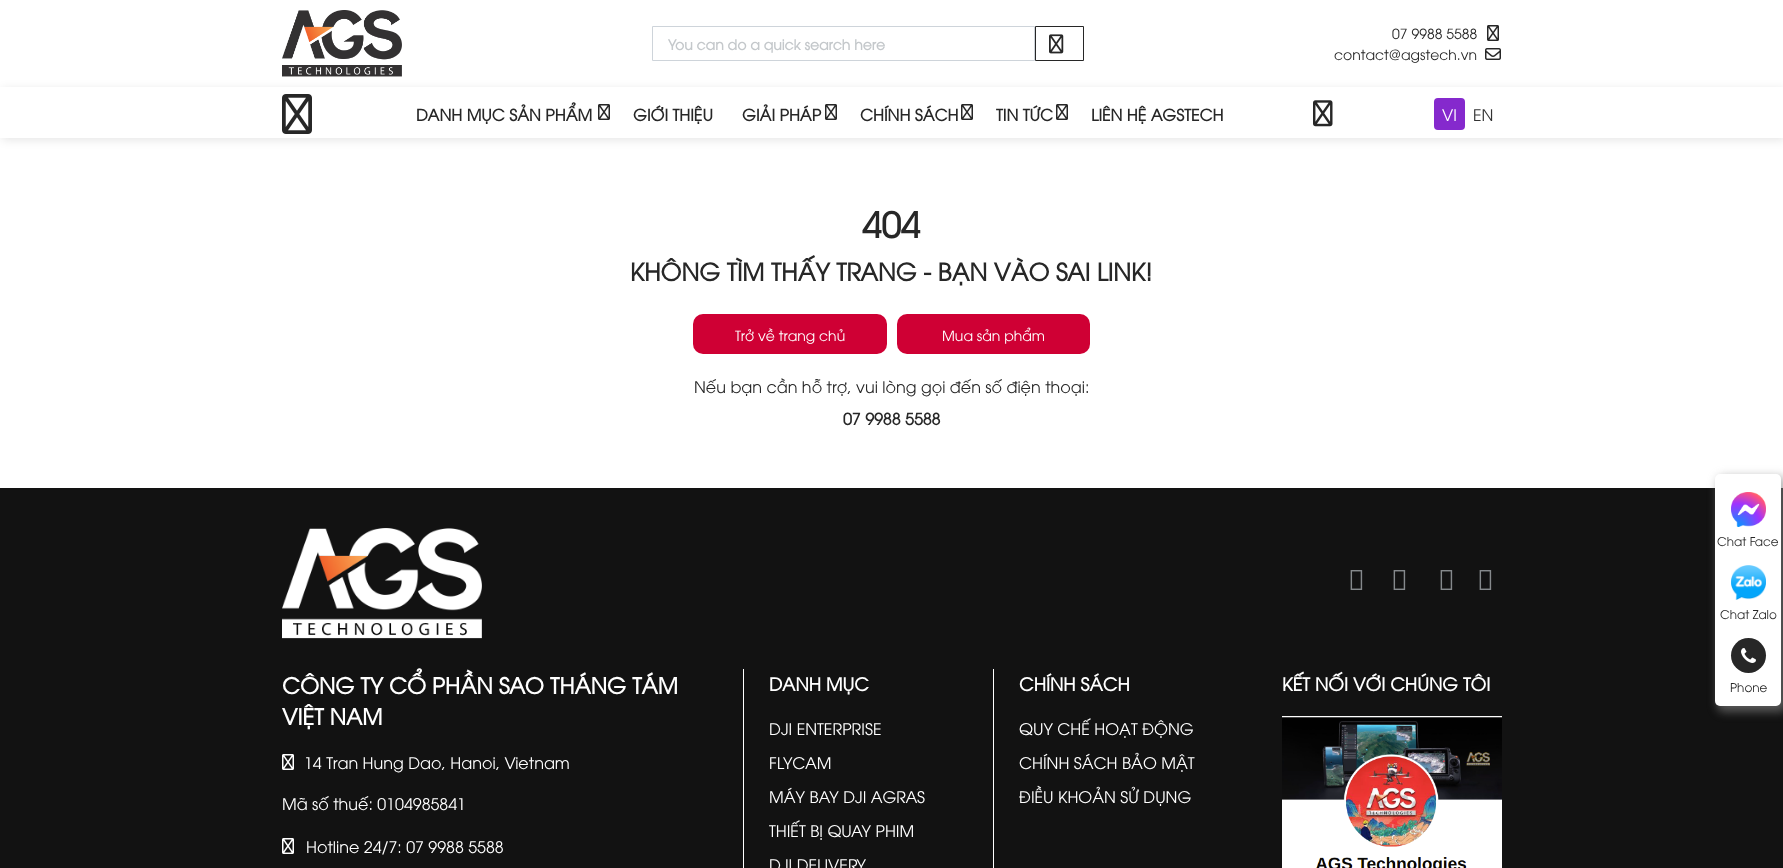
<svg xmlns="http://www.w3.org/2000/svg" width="1783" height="868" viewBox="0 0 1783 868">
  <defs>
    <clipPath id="clip1"><path d="M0 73H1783V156H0ZM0 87H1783V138H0Z" clip-rule="evenodd"/></clipPath>
  </defs>
  <rect width="100%" height="100%" fill="#fff"/>
  <image x="282" y="10" width="120" height="67" href="img/1.png"/>
  <path d="M652.5 26.5h382v34H652.5z" fill="none" stroke="#ced4da"/>
  <path d="M1035.5 26.5h48v34H1035.5z" fill="none" stroke="#272727"/>
  <image x="1049" y="34" width="15" height="20" href="img/2.png"/>
  <image x="1487" y="25" width="12" height="16" href="img/3.png"/>
  <image x="1485" y="48" width="16" height="12" href="img/4.png"/>
  <g clip-path="url(#clip1)">
    <path d="M2 89h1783v51H2z" fill="#0000001a" filter="blur(5px)"/>
  </g>
  <image x="282" y="94" width="30" height="40" href="img/5.png"/>
  <image x="598" y="104" width="12" height="16" href="img/3.png"/>
  <image x="825" y="104" width="12" height="16" href="img/3.png"/>
  <image x="961" y="104" width="12" height="16" href="img/3.png"/>
  <image x="1056" y="104" width="12" height="16" href="img/3.png"/>
  <image x="1313" y="100" width="20" height="27" href="img/6.png"/>
  <rect x="1434" y="98" width="31" height="32" rx="4" fill="#8529cd"/>
  <rect x="693" y="314" width="194" height="40" rx="10" fill="#cf0034"/>
  <rect x="897" y="314" width="193" height="40" rx="10" fill="#cf0034"/>
  <path d="M0 488h1783v380H0z" fill="#121212"/>
  <rect x="1717" y="476" width="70" height="236" rx="7" fill="#87878799" filter="blur(5px)"/>
  <rect x="1715" y="474" width="66" height="232" rx="5" fill="#fff"/>
  <image x="1731" y="492" width="35" height="35" href="img/7.png"/>
  <image x="1731" y="565" width="35" height="35" href="img/8.png"/>
  <circle cx="1748.5" cy="655.5" r="17.5" fill="#272727"/>
  <image x="1741" y="648" width="15" height="15" href="img/9.png"/>
  <image x="282" y="528" width="200" height="111" href="img/10.png"/>
  <image x="1350" y="570" width="13" height="20" href="img/11.png"/>
  <image x="1393" y="570" width="13" height="20" href="img/11.png"/>
  <image x="1440" y="570" width="13" height="20" href="img/11.png"/>
  <image x="1479" y="570" width="13" height="20" href="img/11.png"/>
  <path d="M743 669h1v199H743z" fill="#fff"/>
  <image x="282" y="754" width="12" height="16" href="img/12.png"/>
  <image x="282" y="838" width="12" height="16" href="img/12.png"/>
  <path d="M993 669h1v199H993z" fill="#fff"/>
  <image x="1282" y="716" width="220" height="152" href="img/13.png"/>
  <text x="668" y="50" font-family="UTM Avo" font-size="14" font-weight="bold" fill="#c4c8cb">You can do a quick search here</text>
  <g font-family="UTM Avo" font-size="14" fill="#272727">
    <text x="1392" y="39">07 9988 5588</text>
    <text x="1334" y="60">contact@agstech.vn</text>
  </g>
  <g font-family="UTM Avo" font-size="16" font-weight="bold" fill="#272727">
    <text x="416" y="121">DANH MỤC SẢN PHẨM</text>
    <text x="633" y="121">GIỚI THIỆU</text>
    <text x="742" y="121">GIẢI PHÁP</text>
    <text x="860" y="121">CHÍNH SÁCH</text>
    <text x="996" y="121">TIN TỨC</text>
    <text x="1091" y="121">LIÊN HỆ AGSTECH</text>
  </g>
  <text x="1442" y="121" font-family="UTM Avo" font-size="16" fill="#fff">VI</text>
  <text x="1473" y="121" font-family="UTM Avo" font-size="16" fill="#333">EN</text>
  <text x="862" y="238" font-family="UTM Avo" font-size="35" font-weight="bold" fill="#272727">404</text>
  <text x="630" y="281" font-family="UTM Avo" font-size="24" font-weight="bold" fill="#272727">KHÔNG TÌM THẤY TRANG - BẠN VÀO SAI LINK!</text>
  <g font-family="UTM Avo" font-size="14" fill="#fff">
    <text x="735" y="341">Trở về trang chủ</text>
    <text x="942" y="341">Mua sản phẩm</text>
  </g>
  <text x="694" y="393" font-family="UTM Avo" font-size="16" fill="#272727">Nếu bạn cần hỗ trợ, vui lòng gọi đến số điện thoại:</text>
  <text x="843" y="425" font-family="UTM Avo" font-size="16" font-weight="bold" fill="#272727">07 9988 5588</text>
  <g font-family="UTM Avo" font-size="12" fill="#272727">
    <text x="1717" y="546">Chat Face</text>
    <text x="1720" y="619">Chat Zalo</text>
    <text x="1730" y="692">Phone</text>
  </g>
  <g font-family="UTM Avo" font-size="22" font-weight="bold" fill="#fff">
    <text x="282" y="694">CÔNG TY CỔ PHẦN SAO THÁNG TÁM</text>
    <text x="282" y="725">VIỆT NAM</text>
  </g>
  <g font-family="UTM Avo" font-size="16" fill="#fff">
    <text x="304" y="769">14 Tran Hung Dao, Hanoi, Vietnam</text>
    <text x="282" y="810">Mã số thuế: 0104985841</text>
    <text x="306" y="853">Hotline 24/7: 07 9988 5588</text>
  </g>
  <text x="769" y="691" font-family="UTM Avo" font-size="18" font-weight="bold" fill="#fff">DANH MỤC</text>
  <g font-family="UTM Avo" font-size="16" fill="#fff">
    <text x="769" y="735">DJI ENTERPRISE</text>
    <text x="769" y="769">FLYCAM</text>
    <text x="769" y="803">MÁY BAY DJI AGRAS</text>
    <text x="769" y="837">THIẾT BỊ QUAY PHIM</text>
    <text x="769" y="871">DJI DELIVERY</text>
  </g>
  <text x="1019" y="691" font-family="UTM Avo" font-size="18" font-weight="bold" fill="#fff">CHÍNH SÁCH</text>
  <g font-family="UTM Avo" font-size="16" fill="#fff">
    <text x="1019" y="735">QUY CHẾ HOẠT ĐỘNG</text>
    <text x="1019" y="769">CHÍNH SÁCH BẢO MẬT</text>
    <text x="1019" y="803">ĐIỀU KHOẢN SỬ DỤNG</text>
  </g>
  <text x="1282" y="691" font-family="UTM Avo" font-size="18" font-weight="bold" fill="#fff">KẾT NỐI VỚI CHÚNG TÔI</text>
</svg>
